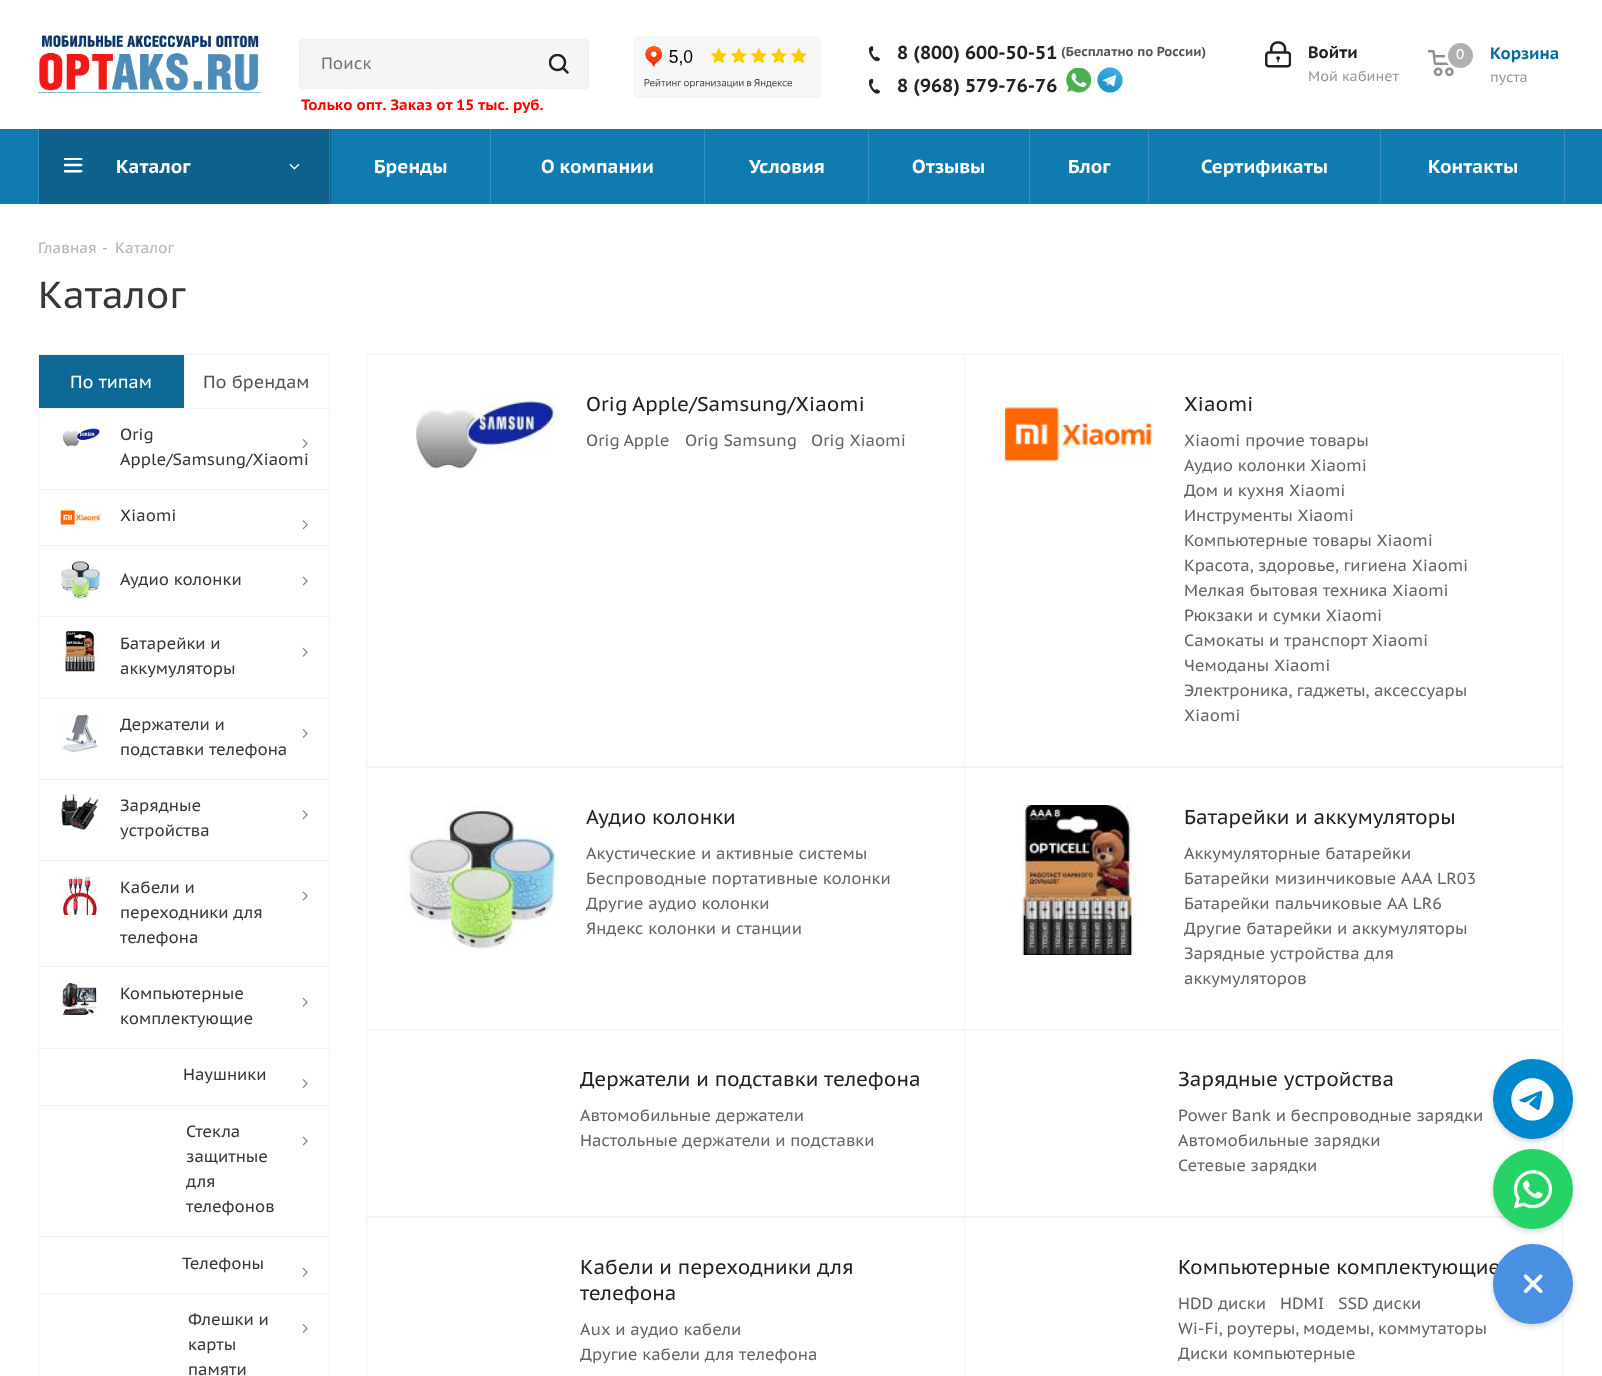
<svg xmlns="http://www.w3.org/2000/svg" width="1602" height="1376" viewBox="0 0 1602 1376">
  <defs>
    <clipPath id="clip1"><path d="M1184 393h340v336H1184z"/></clipPath>
    <clipPath id="clip2"><path d="M1184 805h340v186H1184z"/></clipPath>
    <clipPath id="clip3"><path d="M1178 1255h346v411H1178z"/></clipPath>
  </defs>
  <rect width="100%" height="100%" fill="#fff"/>
  <path d="M38 92h223v1H38z" fill="#0f78ad"/>
  <image x="38" y="34" width="223" height="59" href="img/1.png"/>
  <rect x="299.5" y="39.5" width="289" height="49" rx="3.5" fill="#f5f5f5" stroke="#eee"/>
  <image x="549" y="54" width="20" height="20" href="img/2.png"/>
  <image x="634" y="36" width="187" height="62" href="img/3.png"/>
  <image x="869" y="46" width="11" height="15" href="img/4.png"/>
  <image x="869" y="79" width="11" height="15" href="img/5.png"/>
  <image x="1066" y="68" width="25" height="25" href="img/6.png"/>
  <image x="1097" y="67" width="26" height="26" href="img/7.png"/>
  <image x="1265" y="41" width="26" height="27" href="img/8.png"/>
  <image x="1428" y="50" width="26" height="26" href="img/9.png"/>
  <circle cx="1460" cy="55" r="13.5" fill="none" stroke="#fff" stroke-width="3"/>
  <circle cx="1460" cy="55" r="13.5" fill="none" stroke="#fff" stroke-width="3"/>
  <circle cx="1460.5" cy="55.5" r="12.5" fill="#b0b0b0"/>
  <path d="M0 129h1602v75H0z" fill="#107bb1"/>
  <path d="M38 129h1v75H38z" fill="#348fbd"/>
  <path d="M39 129h292v75H39z" fill="#0d618c"/>
  <path d="M329 129h1v75H329z" fill="#31799d"/>
  <image x="64" y="158" width="19" height="15" href="img/10.png"/>
  <image x="289" y="163" width="11" height="7" href="img/11.png"/>
  <path d="M490 129h1v75H490z" fill="#348fbd"/>
  <path d="M704 129h1v75H704z" fill="#348fbd"/>
  <path d="M868 129h1v75H868z" fill="#348fbd"/>
  <path d="M1029 129h1v75H1029z" fill="#348fbd"/>
  <path d="M1148 129h1v75H1148z" fill="#348fbd"/>
  <path d="M1380 129h1v75H1380z" fill="#348fbd"/>
  <path d="M1564 129h1v75H1564z" fill="#348fbd"/>
  <path d="M39 355h145v53H39z" fill="#0d6896"/>
  <path d="M38 354h292v1H38z" fill="#f2f2f2"/>
  <path d="M184 354h1v54H184z" fill="#f2f2f2"/>
  <path d="M38 354h1v54H38z" fill="#f2f2f2"/>
  <path d="M329 354h1v54H329z" fill="#f2f2f2"/>
  <path d="M38 408h292v1H38z" fill="#f2f2f2"/>
  <path d="M329 408h1v81H329z" fill="#f2f2f2"/>
  <path d="M38 408h1v81H38z" fill="#f2f2f2"/>
  <image x="62" y="426" width="38" height="21" href="img/12.png"/>
  <image x="302" y="439" width="6" height="9" href="img/13.png"/>
  <path d="M38 489h292v1H38z" fill="#f2f2f2"/>
  <path d="M329 489h1v56H329z" fill="#f2f2f2"/>
  <path d="M38 489h1v56H38z" fill="#f2f2f2"/>
  <image x="60" y="510" width="40" height="15" href="img/14.png"/>
  <image x="302" y="520" width="6" height="10" href="img/15.png"/>
  <path d="M38 545h292v1H38z" fill="#f2f2f2"/>
  <path d="M329 545h1v71H329z" fill="#f2f2f2"/>
  <path d="M38 545h1v71H38z" fill="#f2f2f2"/>
  <image x="61" y="560" width="39" height="39" href="img/16.png"/>
  <image x="302" y="576" width="6" height="10" href="img/17.png"/>
  <path d="M38 616h292v1H38z" fill="#f2f2f2"/>
  <path d="M329 616h1v82H329z" fill="#f2f2f2"/>
  <path d="M38 616h1v82H38z" fill="#f2f2f2"/>
  <image x="63" y="631" width="35" height="41" href="img/18.png"/>
  <image x="302" y="647" width="6" height="10" href="img/19.png"/>
  <path d="M38 698h292v1H38z" fill="#f2f2f2"/>
  <path d="M329 698h1v81H329z" fill="#f2f2f2"/>
  <path d="M38 698h1v81H38z" fill="#f2f2f2"/>
  <image x="61" y="714" width="38" height="39" href="img/20.png"/>
  <image x="302" y="729" width="6" height="9" href="img/13.png"/>
  <path d="M38 779h292v1H38z" fill="#f2f2f2"/>
  <path d="M329 779h1v81H329z" fill="#f2f2f2"/>
  <path d="M38 779h1v81H38z" fill="#f2f2f2"/>
  <image x="60" y="793" width="40" height="37" href="img/21.png"/>
  <image x="302" y="810" width="6" height="10" href="img/15.png"/>
  <path d="M38 860h292v1H38z" fill="#f2f2f2"/>
  <path d="M329 860h1v106H329z" fill="#f2f2f2"/>
  <path d="M38 860h1v106H38z" fill="#f2f2f2"/>
  <image x="60" y="875" width="38" height="40" href="img/22.png"/>
  <image x="302" y="891" width="6" height="10" href="img/17.png"/>
  <path d="M38 966h292v1H38z" fill="#f2f2f2"/>
  <path d="M329 966h1v82H329z" fill="#f2f2f2"/>
  <path d="M38 966h1v82H38z" fill="#f2f2f2"/>
  <image x="61" y="981" width="36" height="34" href="img/23.png"/>
  <image x="302" y="997" width="6" height="10" href="img/19.png"/>
  <path d="M38 1048h292v1H38z" fill="#f2f2f2"/>
  <path d="M329 1048h1v57H329z" fill="#f2f2f2"/>
  <path d="M38 1048h1v57H38z" fill="#f2f2f2"/>
  <image x="302" y="1079" width="6" height="9" href="img/13.png"/>
  <path d="M38 1105h292v1H38z" fill="#f2f2f2"/>
  <path d="M329 1105h1v131H329z" fill="#f2f2f2"/>
  <path d="M38 1105h1v131H38z" fill="#f2f2f2"/>
  <image x="302" y="1136" width="6" height="10" href="img/17.png"/>
  <path d="M38 1236h292v1H38z" fill="#f2f2f2"/>
  <path d="M329 1236h1v57H329z" fill="#f2f2f2"/>
  <path d="M38 1236h1v57H38z" fill="#f2f2f2"/>
  <image x="302" y="1267" width="6" height="10" href="img/19.png"/>
  <path d="M38 1293h292v1H38z" fill="#f2f2f2"/>
  <path d="M329 1293h1v83H329z" fill="#f2f2f2"/>
  <path d="M38 1293h1v83H38z" fill="#f2f2f2"/>
  <image x="302" y="1324" width="6" height="9" href="img/13.png"/>
  <path d="M366.5 354.5h598v413H366.5z" fill="none" stroke="#f2f2f2"/>
  <image x="416" y="392" width="139" height="77" href="img/24.png"/>
  <path d="M964.5 354.5h598v413H964.5z" fill="none" stroke="#f2f2f2"/>
  <image x="1004" y="407" width="148" height="55" href="img/25.png"/>
  <path d="M366.5 766.5h598v263H366.5z" fill="none" stroke="#f2f2f2"/>
  <image x="405" y="805" width="150" height="147" href="img/26.png"/>
  <path d="M964.5 766.5h598v263H964.5z" fill="none" stroke="#f2f2f2"/>
  <image x="1021" y="805" width="122" height="150" href="img/27.png"/>
  <path d="M366.5 1029.5h598v188H366.5z" fill="none" stroke="#f2f2f2"/>
  <path d="M964.5 1029.5h598v188H964.5z" fill="none" stroke="#f2f2f2"/>
  <path d="M366.5 1216.5h598v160H366.5z" fill="none" stroke="#f2f2f2"/>
  <path d="M964.5 1216.5h598v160H964.5z" fill="none" stroke="#f2f2f2"/>
  <rect x="1493" y="1061" width="80" height="80" rx="40" fill="#00000033" filter="blur(3px)"/>
  <circle cx="1533" cy="1099" r="40" fill="#08c"/>
  <image x="1511" y="1078" width="43" height="43" href="img/28.png"/>
  <rect x="1493" y="1151" width="80" height="80" rx="40" fill="#00000033" filter="blur(3px)"/>
  <circle cx="1533" cy="1189" r="40" fill="#25d366"/>
  <image x="1513" y="1170" width="39" height="39" href="img/29.png"/>
  <rect x="1493" y="1246" width="80" height="80" rx="40" fill="#00000033" filter="blur(3px)"/>
  <text x="321" y="69" font-family="PT Sans Caption" font-size="16.5" fill="#757575">Поиск</text>
  <text x="301" y="110" font-family="PT Sans Caption" font-size="15" font-weight="bold" fill="#f00">Только опт. Заказ от 15 тыс. руб.</text>
  <text x="897" y="59" font-family="PT Sans Caption" font-size="18.75" font-weight="bold" fill="#222">8 (800) 600-50-51</text>
  <text x="1061" y="56" font-family="PT Sans Caption" font-size="13" font-weight="bold" fill="#555">(Бесплатно по России)</text>
  <text x="897" y="92" font-family="PT Sans Caption" font-size="18.75" font-weight="bold" fill="#222">8 (968) 579-76-76</text>
  <text x="1308" y="58" font-family="PT Sans Caption" font-size="16.5" font-weight="bold" fill="#222">Войти</text>
  <text x="1308" y="81" font-family="PT Sans Caption" font-size="14" fill="#999">Мой кабинет</text>
  <text x="1456" y="59" font-family="PT Sans Caption" font-size="14" fill="#fff">0</text>
  <text x="1490" y="59" font-family="PT Sans Caption" font-size="16.5" font-weight="bold" fill="#0d6b9a">Корзина</text>
  <text x="1490" y="82" font-family="PT Sans Caption" font-size="14" fill="#999">пуста</text>
  <g font-family="PT Sans Caption" font-size="18.75" font-weight="bold" fill="#fff">
    <text x="116" y="173">Каталог</text>
    <text x="374" y="173">Бренды</text>
    <text x="541" y="173">О компании</text>
    <text x="749" y="173">Условия</text>
    <text x="912" y="173">Отзывы</text>
    <text x="1068" y="173">Блог</text>
    <text x="1201" y="173">Сертификаты</text>
    <text x="1428" y="173">Контакты</text>
  </g>
  <g font-family="PT Sans Caption" font-size="15" fill="#b6b5b5">
    <text x="38" y="253">Главная</text>
    <text x="102" y="253">-</text>
    <text x="115" y="253">Каталог</text>
  </g>
  <text x="38" y="308" font-family="PT Sans Caption" font-size="37.5" fill="#383838">Каталог</text>
  <text x="70" y="388" font-family="PT Sans Caption" font-size="17.5" fill="#fff">По типам</text>
  <text x="203" y="388" font-family="PT Sans Caption" font-size="17.5" fill="#555">По брендам</text>
  <g font-family="PT Sans Caption" font-size="16.25" fill="#383838">
    <text x="120" y="440">Orig</text>
    <text x="120" y="465">Apple/Samsung/Xiaomi</text>
    <text x="120" y="521">Xiaomi</text>
    <text x="120" y="585">Аудио колонки</text>
    <text x="120" y="649">Батарейки и</text>
    <text x="120" y="674">аккумуляторы</text>
    <text x="120" y="730">Держатели и</text>
    <text x="120" y="755">подставки телефона</text>
    <text x="120" y="811">Зарядные</text>
    <text x="120" y="836">устройства</text>
    <text x="120" y="893">Кабели и</text>
    <text x="120" y="918">переходники для</text>
    <text x="120" y="943">телефона</text>
    <text x="120" y="999">Компьютерные</text>
    <text x="120" y="1024">комплектующие</text>
    <text x="183" y="1080">Наушники</text>
    <text x="186" y="1137">Стекла</text>
    <text x="186" y="1162">защитные</text>
    <text x="186" y="1187">для</text>
    <text x="186" y="1212">телефонов</text>
    <text x="182" y="1269">Телефоны</text>
    <text x="188" y="1325">Флешки и</text>
    <text x="188" y="1350">карты</text>
    <text x="188" y="1375">памяти</text>
  </g>
  <text x="586" y="411" word-spacing="-1" font-family="PT Sans Caption" font-size="20" fill="#222">Orig Apple/Samsung/Xiaomi</text>
  <g font-family="PT Sans Caption" font-size="16.25" fill="#666">
    <text x="586" y="446" word-spacing="-1">Orig Apple</text>
    <text x="685" y="446">Orig Samsung</text>
    <text x="811" y="446">Orig Xiaomi</text>
  </g>
  <text x="1184" y="411" font-family="PT Sans Caption" font-size="20" fill="#222">Xiaomi</text>
  <g font-family="PT Sans Caption" font-size="16.25" fill="#666">
    <text x="1184" y="446">Xiaomi прочие товары</text>
    <text x="1184" y="471">Аудио колонки Xiaomi</text>
  </g>
  <g clip-path="url(#clip1)">
    <text x="1184" y="496" font-family="PT Sans Caption" font-size="16.25" fill="#666">Дом и кухня Xiaomi</text>
  </g>
  <g font-family="PT Sans Caption" font-size="16.25" fill="#666">
    <text x="1184" y="521">Инструменты Xiaomi</text>
    <text x="1184" y="546">Компьютерные товары Xiaomi</text>
    <text x="1184" y="571">Красота, здоровье, гигиена Xiaomi</text>
    <text x="1184" y="596">Мелкая бытовая техника Xiaomi</text>
    <text x="1184" y="621">Рюкзаки и сумки Xiaomi</text>
    <text x="1184" y="646">Самокаты и транспорт Xiaomi</text>
    <text x="1184" y="671">Чемоданы Xiaomi</text>
    <text x="1184" y="696">Электроника, гаджеты, аксессуары</text>
    <text x="1184" y="721">Xiaomi</text>
  </g>
  <text x="586" y="824" font-family="PT Sans Caption" font-size="20" fill="#222">Аудио колонки</text>
  <g font-family="PT Sans Caption" font-size="16.25" fill="#666">
    <text x="586" y="859">Акустические и активные системы</text>
    <text x="586" y="884">Беспроводные портативные колонки</text>
    <text x="586" y="909">Другие аудио колонки</text>
    <text x="586" y="934">Яндекс колонки и станции</text>
  </g>
  <text x="1184" y="824" font-family="PT Sans Caption" font-size="20" fill="#222">Батарейки и аккумуляторы</text>
  <g font-family="PT Sans Caption" font-size="16.25" fill="#666">
    <text x="1184" y="859">Аккумуляторные батарейки</text>
    <text x="1184" y="884" word-spacing="0.5">Батарейки мизинчиковые ААА LR03</text>
    <text x="1184" y="909" word-spacing="0.5">Батарейки пальчиковые АА LR6</text>
  </g>
  <g clip-path="url(#clip2)">
    <text x="1184" y="934" font-family="PT Sans Caption" font-size="16.25" fill="#666">Другие батарейки и аккумуляторы</text>
  </g>
  <g font-family="PT Sans Caption" font-size="16.25" fill="#666">
    <text x="1184" y="959">Зарядные устройства для</text>
    <text x="1184" y="984">аккумуляторов</text>
  </g>
  <text x="580" y="1086" font-family="PT Sans Caption" font-size="20" fill="#222">Держатели и подставки телефона</text>
  <g font-family="PT Sans Caption" font-size="16.25" fill="#666">
    <text x="580" y="1121">Автомобильные держатели</text>
    <text x="580" y="1146">Настольные держатели и подставки</text>
  </g>
  <text x="1178" y="1086" font-family="PT Sans Caption" font-size="20" fill="#222">Зарядные устройства</text>
  <g font-family="PT Sans Caption" font-size="16.25" fill="#666">
    <text x="1178" y="1121">Power Bank и беспроводные зарядки</text>
    <text x="1178" y="1146">Автомобильные зарядки</text>
    <text x="1178" y="1171">Сетевые зарядки</text>
  </g>
  <g font-family="PT Sans Caption" font-size="20" fill="#222">
    <text x="580" y="1274">Кабели и переходники для</text>
    <text x="580" y="1300">телефона</text>
  </g>
  <g font-family="PT Sans Caption" font-size="16.25" fill="#666">
    <text x="580" y="1335">Aux и аудио кабели</text>
    <text x="580" y="1360">Другие кабели для телефона</text>
  </g>
  <text x="1178" y="1274" font-family="PT Sans Caption" font-size="20" fill="#222">Компьютерные комплектующие</text>
  <g font-family="PT Sans Caption" font-size="16.25" fill="#666">
    <text x="1178" y="1309">HDD диски</text>
    <text x="1280" y="1309">HDMI</text>
    <text x="1338" y="1309">SSD диски</text>
    <text x="1178" y="1334" word-spacing="-0.5">Wi-Fi, роутеры, модемы, коммутаторы</text>
  </g>
  <g clip-path="url(#clip3)">
    <text x="1178" y="1359" font-family="PT Sans Caption" font-size="16.25" fill="#666">Диски компьютерные</text>
  </g>
  <circle cx="1533" cy="1284" r="40" fill="#4a90e2"/>
  <path d="M1470 1299V1274L1485 1286Z" fill="#fff"/>
  <image x="1523" y="1274" width="20" height="20" href="img/30.png"/>
</svg>
